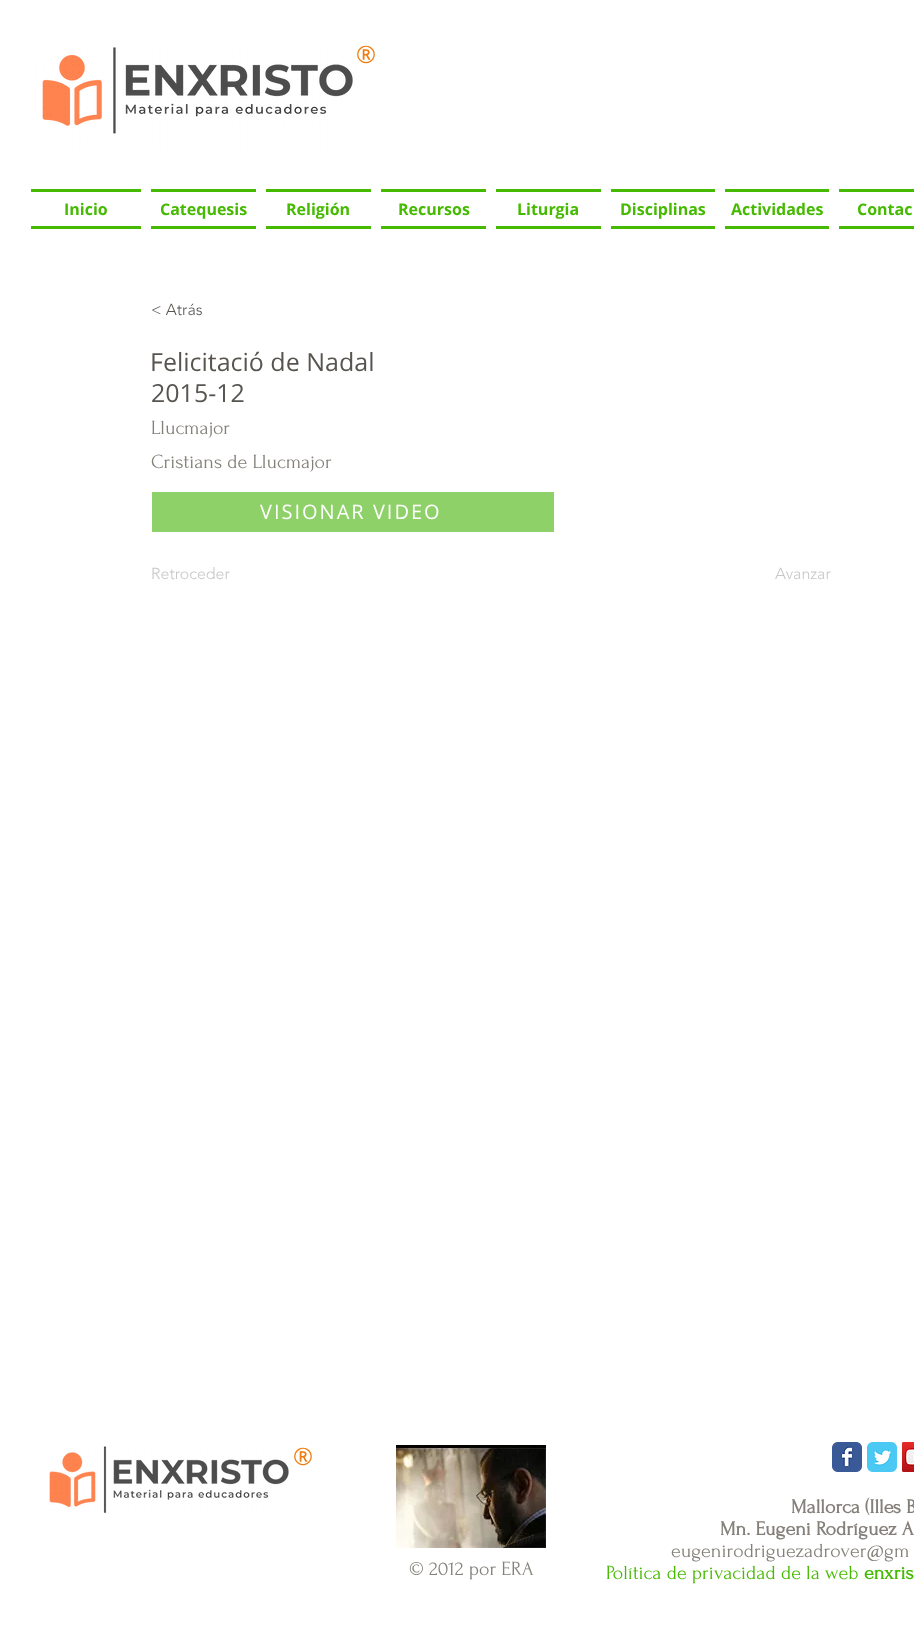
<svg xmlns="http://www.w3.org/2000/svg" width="914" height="1636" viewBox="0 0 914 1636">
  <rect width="100%" height="100%" fill="#fff"/>
  <path d="M31 189h110v3H31z" fill="#45ba01"/>
  <path d="M31 226h110v3H31z" fill="#45ba01"/>
  <path d="M151 189h105v3H151z" fill="#45ba01"/>
  <path d="M151 226h105v3H151z" fill="#45ba01"/>
  <path d="M266 189h105v3H266z" fill="#45ba01"/>
  <path d="M266 226h105v3H266z" fill="#45ba01"/>
  <path d="M381 189h105v3H381z" fill="#45ba01"/>
  <path d="M381 226h105v3H381z" fill="#45ba01"/>
  <path d="M496 189h105v3H496z" fill="#45ba01"/>
  <path d="M496 226h105v3H496z" fill="#45ba01"/>
  <path d="M611 189h104v3H611z" fill="#45ba01"/>
  <path d="M611 226h104v3H611z" fill="#45ba01"/>
  <path d="M725 189h104v3H725z" fill="#45ba01"/>
  <path d="M725 226h104v3H725z" fill="#45ba01"/>
  <path d="M839 189h75v3H839z" fill="#45ba01"/>
  <path d="M839 226h75v3H839z" fill="#45ba01"/>
  <path d="M152 492h402v40H152z" fill="#8fd169"/>
  <image x="49" y="1446" width="240" height="67" href="img/2.png"/>
  <image x="396" y="1445" width="150" height="103" href="img/3.png"/>
  <image x="832" y="1442" width="30" height="30" href="img/4.png"/>
  <image x="867" y="1442" width="30" height="30" href="img/5.png"/>
  <image x="902" y="1442" width="12" height="30" href="img/6.png"/>
  <text x="356" y="63" font-family="Open Sans" font-size="24" fill="#ef7c0d">®</text>
  <image x="36" y="47" width="328" height="98" href="img/1.png"/>
  <g font-family="Open Sans" font-size="16" font-weight="bold" fill="#45ba01">
    <text x="64" y="215">Inicio</text>
    <text x="160" y="215">Catequesis</text>
    <text x="286" y="215">Religión</text>
    <text x="398" y="215">Recursos</text>
    <text x="517" y="215">Liturgia</text>
    <text x="620" y="215">Disciplinas</text>
    <text x="731" y="215">Actividades</text>
    <text x="857" y="215">Contac</text>
  </g>
  <text x="151" y="315" font-family="'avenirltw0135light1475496'" font-size="16" font-weight="300" fill="#585551">&lt; Atrás</text>
  <g font-family="Open Sans" font-size="25" fill="#585551">
    <text x="150" y="371">Felicitació de Nadal</text>
    <text x="151" y="402">2015-12</text>
  </g>
  <g font-family="Forum" font-size="20" fill="#848079">
    <text x="151" y="434">Llucmajor</text>
    <text x="151" y="468">Cristians de Llucmajor</text>
  </g>
  <text x="260" y="519" font-family="Open Sans" font-size="20" letter-spacing="2" fill="#fff">VISIONAR VIDEO</text>
  <g font-family="'avenirltw0135light1475496'" font-size="16" font-weight="300" fill="#c7c7c7">
    <text x="151" y="579">Retroceder</text>
    <text x="775" y="579">Avanzar</text>
  </g>
  <text x="293" y="1465" font-family="Open Sans" font-size="24" fill="#ef7c0d">®</text>
  <text x="409" y="1575" font-family="Forum" font-size="20" fill="#848079">© 2012 por ERA</text>
  <g font-family="Forum" font-size="20" font-weight="bold" fill="#848079">
    <text x="791" y="1513">Mallorca (Illes B</text>
    <text x="720" y="1535">Mn. Eugeni Rodríguez A</text>
  </g>
  <text x="671" y="1557" font-family="Forum" font-size="20" fill="#848079">eugenirodriguezadrover@gm</text>
  <text x="606" y="1579" font-family="Forum" font-size="20" fill="#45ba01">Política de privacidad de la web</text>
  <text x="864" y="1579" font-family="Forum" font-size="20" font-weight="bold" fill="#45ba01">enxris</text>
</svg>
